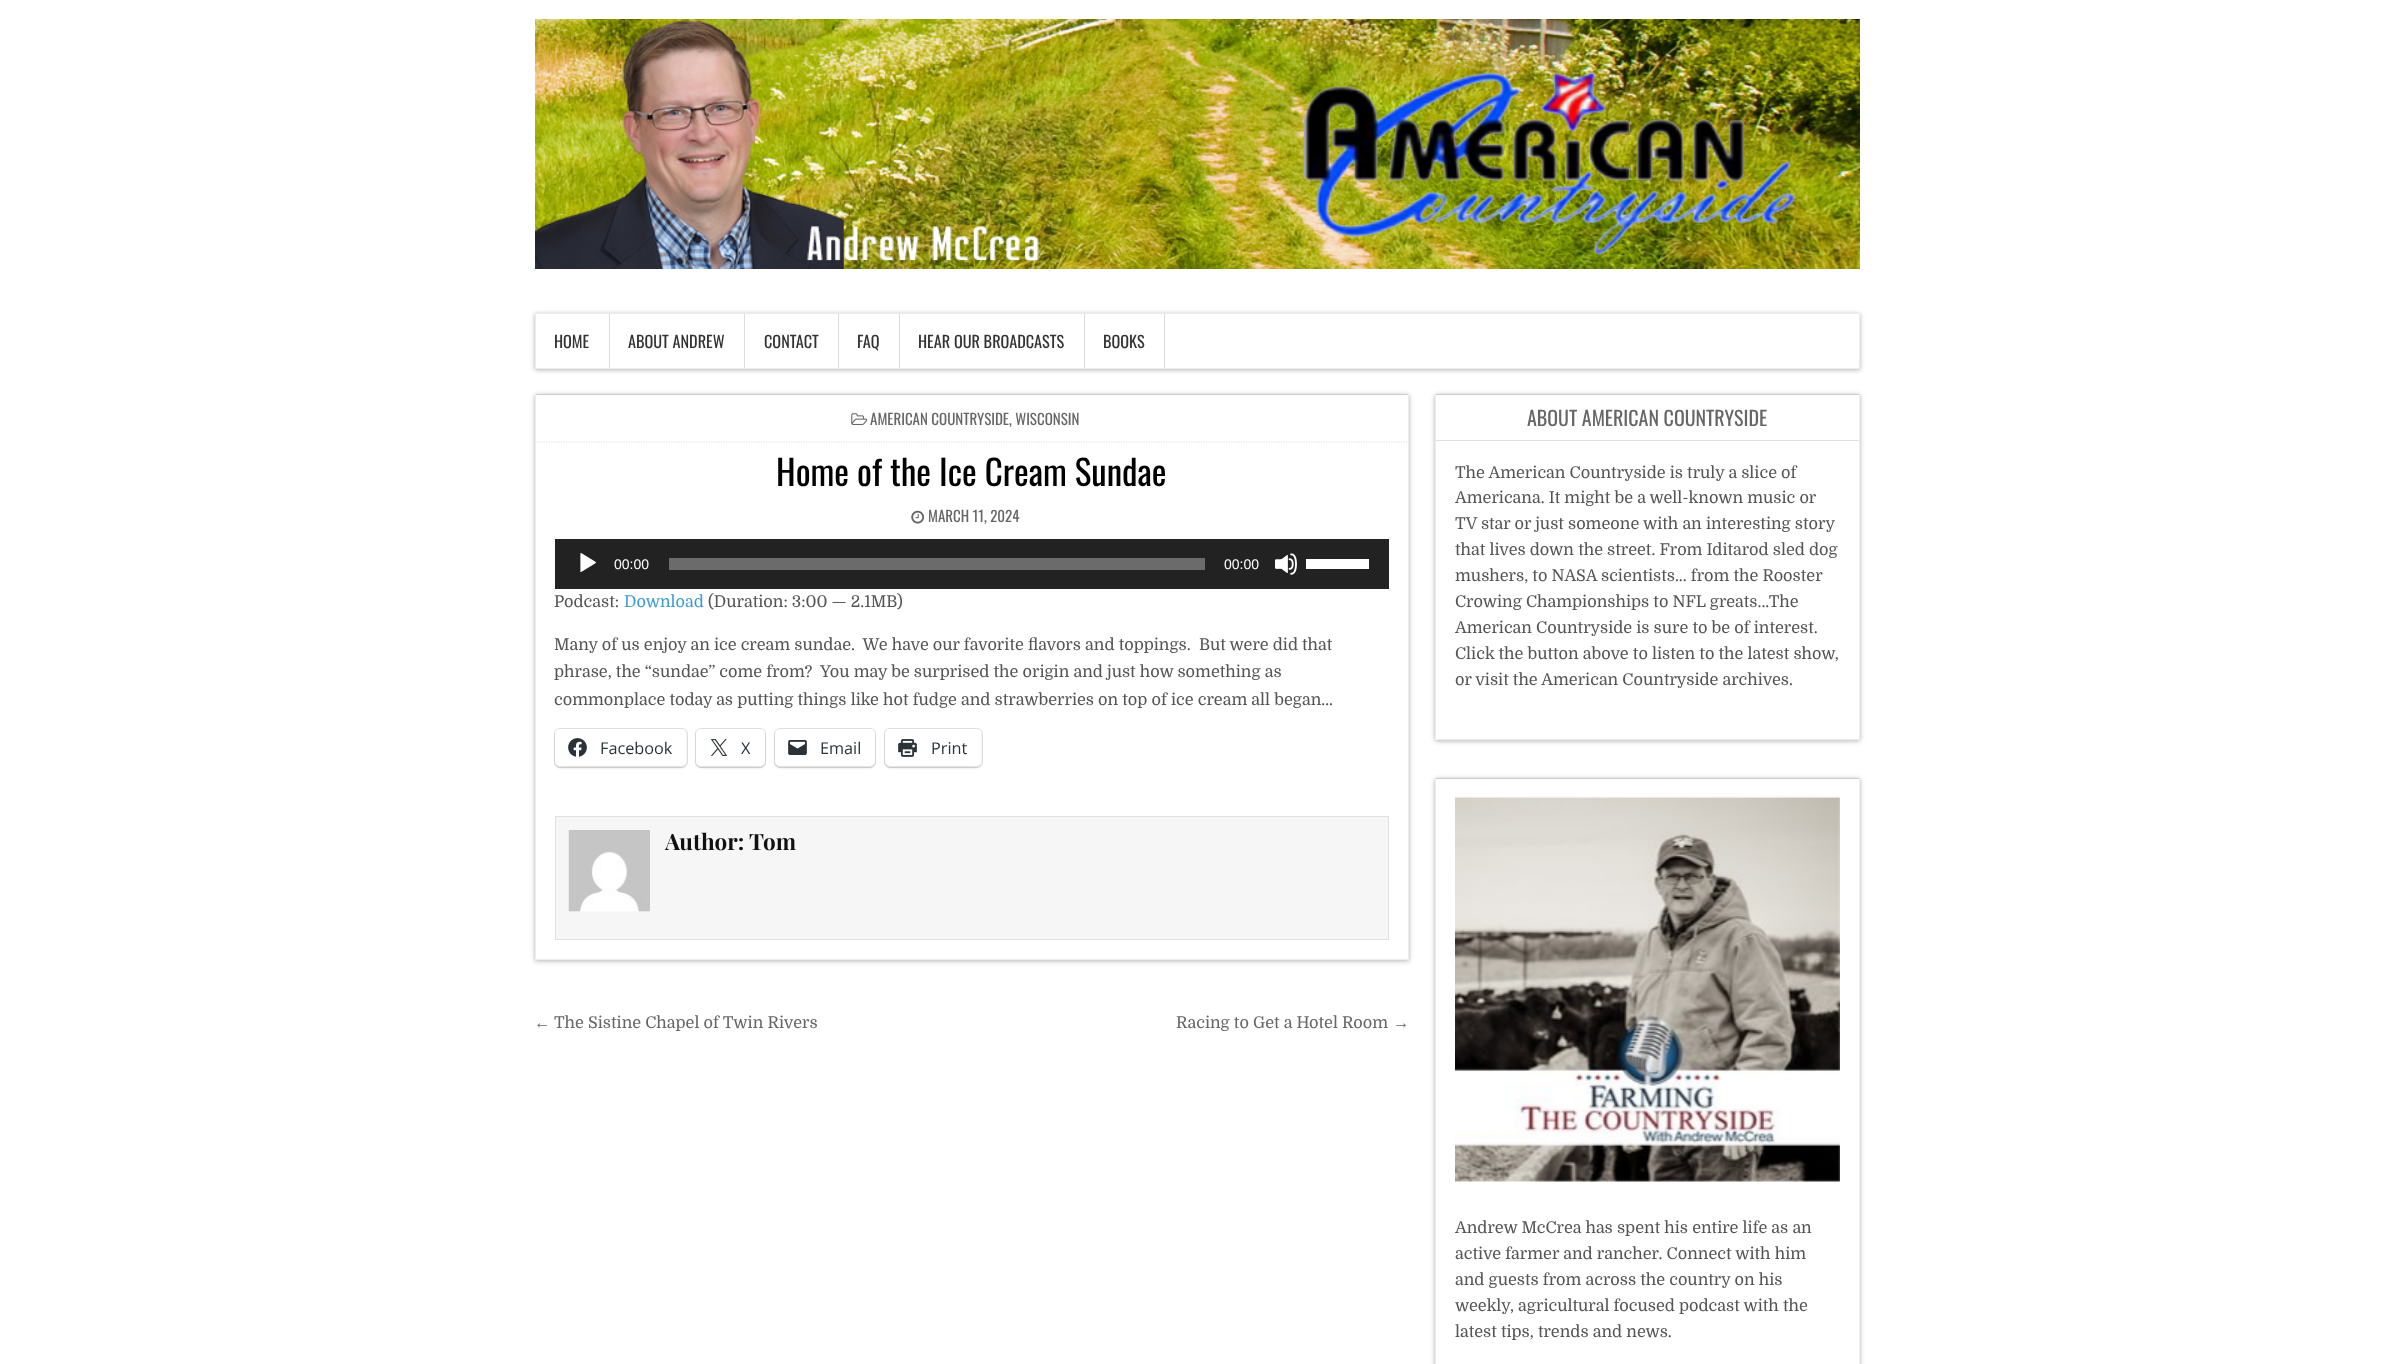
<svg xmlns="http://www.w3.org/2000/svg" width="2393" height="1364" viewBox="0 0 2393 1364">
  <defs>
    <clipPath id="clip1"><path d="M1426 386H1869V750H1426ZM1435 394H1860V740H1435Z" clip-rule="evenodd"/></clipPath>
    <clipPath id="clip2"><path d="M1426 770H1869V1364H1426ZM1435 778H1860V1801H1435Z" clip-rule="evenodd"/></clipPath>
  </defs>
  <rect width="100%" height="100%" fill="#fff"/>
  <image x="535" y="19" width="1325" height="250" href="img/1.png"/>
  <path d="M535 314h1325v56H535z" fill="#0000004d" filter="blur(2.5px)"/>
  <path d="M535.5 313.5h1324v55H535.5z" fill="#fff" stroke="#ececec"/>
  <path d="M609 314h1v54H609z" fill="#ddd"/>
  <path d="M744 314h1v54H744z" fill="#ddd"/>
  <path d="M838 314h1v54H838z" fill="#ddd"/>
  <path d="M899 314h1v54H899z" fill="#ddd"/>
  <path d="M1084 314h1v54H1084z" fill="#ddd"/>
  <path d="M1164 314h1v54H1164z" fill="#ddd"/>
  <path d="M535 395h874v566H535z" fill="#0000004d" filter="blur(2.5px)"/>
  <path d="M536 395h872v564H536z" fill="#fff"/>
  <path d="M535 394h874v1H535z" fill="#ccc"/>
  <path d="M1408 394h1v566H1408z" fill="#ececec"/>
  <path d="M535 959h874v1H535z" fill="#ececec"/>
  <path d="M535 394h1v566H535z" fill="#ececec"/>
  <path d="M536 442H1407.5" fill="none" stroke="#ddd" stroke-width="1.2" stroke-dasharray="1.25 1.25"/>
  <image x="851" y="413" width="17" height="12" href="img/2.png"/>
  <image x="911" y="510" width="14" height="14" href="img/3.png"/>
  <path d="M555 539h834v50H555z" fill="#222"/>
  <image x="580" y="553" width="16" height="19" href="img/4.png"/>
  <path d="M669 558h536v12H669z" fill="#6b6b6b"/>
  <image x="1275" y="553" width="22" height="22" href="img/5.png"/>
  <path d="M1306 559h63v10H1306z" fill="#fff"/>
  <rect x="554.5" y="728.5" width="133" height="39" rx="5.5" fill="none" stroke="#e0e0e0"/>
  <rect x="555" y="730" width="131" height="38" rx="5" fill="#0000001f" filter="blur(1px)"/>
  <rect x="555" y="729" width="131" height="37" rx="5" fill="#fff"/>
  <image x="568" y="738" width="19" height="19" href="img/6.png"/>
  <rect x="695.5" y="728.5" width="70" height="39" rx="5.5" fill="none" stroke="#e0e0e0"/>
  <rect x="696" y="730" width="69" height="38" rx="5" fill="#0000001f" filter="blur(1px)"/>
  <rect x="696" y="729" width="69" height="37" rx="5" fill="#fff"/>
  <image x="710" y="739" width="18" height="17" href="img/7.png"/>
  <rect x="774.5" y="728.5" width="101" height="39" rx="5.5" fill="none" stroke="#e0e0e0"/>
  <rect x="775" y="730" width="100" height="38" rx="5" fill="#0000001f" filter="blur(1px)"/>
  <rect x="775" y="729" width="100" height="37" rx="5" fill="#fff"/>
  <image x="788" y="740" width="19" height="15" href="img/8.png"/>
  <rect x="884.5" y="728.5" width="98" height="39" rx="5.5" fill="none" stroke="#e0e0e0"/>
  <rect x="885" y="730" width="96" height="38" rx="5" fill="#0000001f" filter="blur(1px)"/>
  <rect x="885" y="729" width="96" height="37" rx="5" fill="#fff"/>
  <image x="898" y="739" width="19" height="18" href="img/9.png"/>
  <path d="M555.5 816.5h833v123H555.5z" fill="#f6f6f6" stroke="#e0e0e0"/>
  <image x="568" y="830" width="82" height="82" href="img/10.png"/>
  <g clip-path="url(#clip1)">
    <path d="M1435 395h425v346H1435z" fill="#0000004d" filter="blur(2.5px)"/>
  </g>
  <path d="M1435 394h425v1H1435z" fill="#ccc"/>
  <path d="M1859 394h1v346H1859z" fill="#ececec"/>
  <path d="M1435 739h425v1H1435z" fill="#ececec"/>
  <path d="M1435 394h1v346H1435z" fill="#ececec"/>
  <path d="M1436 440h423v1H1436z" fill="#dfdfdf"/>
  <g clip-path="url(#clip2)">
    <path d="M1435 779h425v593H1435z" fill="#0000004d" filter="blur(2.5px)"/>
  </g>
  <path d="M1435 778h425v1H1435z" fill="#ccc"/>
  <path d="M1859 778h1v586H1859z" fill="#ececec"/>
  <path d="M1435 778h1v586H1435z" fill="#ececec"/>
  <image x="1455" y="796" width="385" height="386" href="img/11.png"/>
  <g font-family="Oswald" font-size="16.25" fill="#333">
    <text x="554" y="348">HOME</text>
    <text x="628" y="348">ABOUT ANDREW</text>
    <text x="764" y="348">CONTACT</text>
    <text x="857" y="348">FAQ</text>
    <text x="918" y="348">HEAR OUR BROADCASTS</text>
    <text x="1103" y="348">BOOKS</text>
  </g>
  <text x="870" y="425" font-family="Oswald" font-size="15" fill="#666">AMERICAN COUNTRYSIDE, WISCONSIN</text>
  <text x="776" y="486" font-family="Oswald" font-size="35" fill="#000">Home of the Ice Cream Sundae</text>
  <text x="928" y="522" font-family="Oswald" font-size="15" fill="#666">MARCH 11, 2024</text>
  <g font-family="Liberation Sans" font-size="14" fill="#fff">
    <text x="614" y="569">00:00</text>
    <text x="1224" y="569">00:00</text>
  </g>
  <text x="554" y="607" font-family="Domine" font-size="16.25" fill="#555">Podcast:</text>
  <text x="624" y="607" font-family="Domine" font-size="16.25" fill="#409bd4">Download</text>
  <g font-family="Domine" font-size="16.25" fill="#555">
    <text x="708" y="607">(Duration: 3:00 — 2.1MB)</text>
    <text x="554" y="650" xml:space="preserve">Many of us enjoy an ice cream sundae.  We have our favorite flavors and toppings.  But were did that</text>
    <text x="554" y="677" xml:space="preserve">phrase, the “sundae” come from?  You may be surprised the origin and just how something as</text>
    <text x="554" y="705">commonplace today as putting things like hot fudge and strawberries on top of ice cream all began…</text>
  </g>
  <g font-family="Open Sans" font-size="16.25" fill="#2c3338">
    <text x="600" y="754">Facebook</text>
    <text x="741" y="754">X</text>
    <text x="820" y="754">Email</text>
    <text x="931" y="754">Print</text>
  </g>
  <g font-family="Playfair Display" font-size="22.5" font-weight="bold" fill="#111">
    <text x="665" y="850">Author:</text>
    <text x="749" y="850">Tom</text>
  </g>
  <text x="534" y="1028" font-family="Liberation Sans" font-size="16.25" fill="#666">←</text>
  <g font-family="Domine" font-size="16.25" fill="#666">
    <text x="554" y="1028">The Sistine Chapel of Twin Rivers</text>
    <text x="1176" y="1028">Racing to Get a Hotel Room</text>
  </g>
  <text x="1393" y="1028" font-family="Liberation Sans" font-size="16.25" fill="#666">→</text>
  <text x="1527" y="426" font-family="Oswald" font-size="20" fill="#666">ABOUT AMERICAN COUNTRYSIDE</text>
  <g font-family="Domine" font-size="16.25" fill="#555">
    <text x="1455" y="478">The American Countryside is truly a slice of</text>
    <text x="1455" y="503">Americana. It might be a well-known music or</text>
    <text x="1455" y="529">TV star or just someone with an interesting story</text>
    <text x="1455" y="555">that lives down the street. From Iditarod sled dog</text>
    <text x="1455" y="581">mushers, to NASA scientists... from the Rooster</text>
    <text x="1455" y="607">Crowing Championships to NFL greats...The</text>
    <text x="1455" y="633">American Countryside is sure to be of interest.</text>
    <text x="1455" y="659">Click the button above to listen to the latest show,</text>
    <text x="1455" y="685">or visit the American Countryside archives.</text>
    <text x="1455" y="1233">Andrew McCrea has spent his entire life as an</text>
    <text x="1455" y="1259">active farmer and rancher. Connect with him</text>
    <text x="1455" y="1285">and guests from across the country on his</text>
    <text x="1455" y="1311">weekly, agricultural focused podcast with the</text>
    <text x="1455" y="1337">latest tips, trends and news.</text>
  </g>
</svg>
